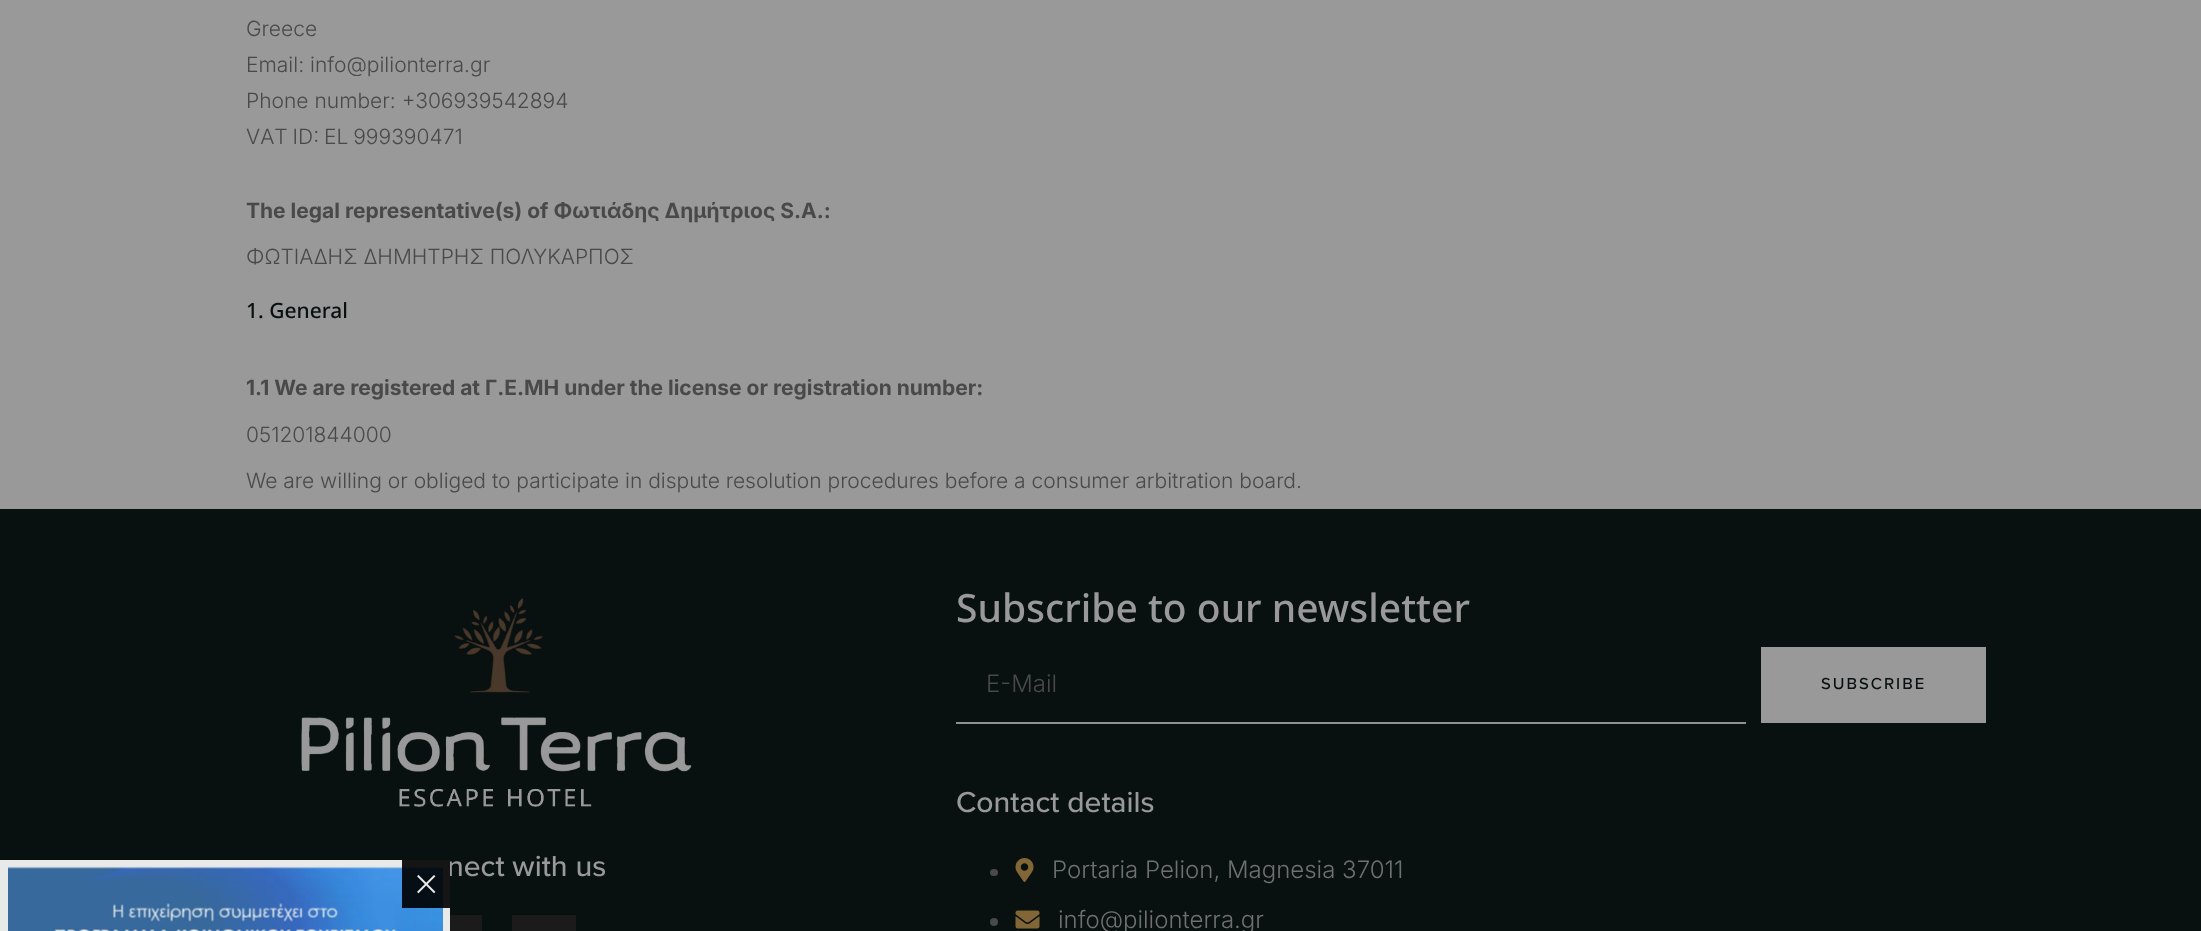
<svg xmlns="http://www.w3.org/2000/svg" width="2201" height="931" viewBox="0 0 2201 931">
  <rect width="100%" height="100%" fill="#999"/>
  <path d="M0 509h2201v422H0z" fill="#081010"/>
  <image x="301" y="598" width="391" height="209" href="img/3.png"/>
  <path d="M416 915h66v16H416z" fill="#1b1b1b"/>
  <path d="M512 915h64v16H512z" fill="#1b1b1b"/>
  <path d="M956 722h790v2H956z" fill="#909090"/>
  <path d="M1761 647h225v76H1761z" fill="#999"/>
  <rect x="990" y="869" width="8" height="7" rx="3.5" fill="#494949"/>
  <image x="1015" y="858" width="19" height="24" href="img/4.png"/>
  <circle cx="994" cy="922" r="4" fill="#494949"/>
  <image x="1015" y="910" width="25" height="19" href="img/5.png"/>
  <g font-family="Inter" font-size="21" font-weight="300" fill="#494949">
    <text x="246" y="36">Greece</text>
    <text x="246" y="72">Email: info@pilionterra.gr</text>
    <text x="246" y="108">Phone number: +306939542894</text>
    <text x="246" y="144" word-spacing="-1">VAT ID: EL 999390471</text>
  </g>
  <text x="246" y="218" font-family="Inter" font-size="21" font-weight="bold" fill="#494949">The legal representative(s) of Φωτιάδης Δημήτριος S.A.:</text>
  <text x="246" y="264" font-family="Inter" font-size="21" font-weight="300" fill="#494949">ΦΩΤΙΑΔΗΣ ΔΗΜΗΤΡΗΣ ΠΟΛΥΚΑΡΠΟΣ</text>
  <text x="246" y="318" font-family="Noto Sans" font-size="21" font-weight="500" fill="#081010">1. General</text>
  <text x="246" y="395" font-family="Inter" font-size="21" font-weight="bold" fill="#494949">1.1 We are registered at Γ.Ε.ΜΗ under the license or registration number:</text>
  <g font-family="Inter" font-size="21" font-weight="300" fill="#494949">
    <text x="246" y="442">051201844000</text>
    <text x="246" y="488">We are willing or obliged to participate in dispute resolution procedures before a consumer arbitration board.</text>
  </g>
  <text x="447" y="876" font-family="Proxima Nova" font-size="30" font-weight="500" fill="#999">nect with us</text>
  <path d="M0 860h450v71H0z" fill="#ffffffe8"/>
  <image x="8" y="866" width="435" height="65" href="img/1.png"/>
  <path d="M402 860h48v48H402z" fill="#000000e8"/>
  <image x="417" y="875" width="19" height="19" href="img/2.png"/>
  <text x="956" y="622" font-family="Noto Sans" font-size="39" font-weight="500" fill="#999">Subscribe to our newsletter</text>
  <text x="986" y="692" font-family="Inter" font-size="24" font-weight="300" fill="#494949">E-Mail</text>
  <text x="1821" y="689" font-family="Proxima Nova" font-size="16.5" font-weight="500" letter-spacing="2" fill="#081010">SUBSCRIBE</text>
  <text x="956" y="812" font-family="Proxima Nova" font-size="30" font-weight="500" fill="#999">Contact details</text>
  <g font-family="Inter" font-size="24" font-weight="300" fill="#707070">
    <text x="1052" y="878">Portaria Pelion, Magnesia 37011</text>
    <text x="1058" y="928">info@pilionterra.gr</text>
  </g>
</svg>
